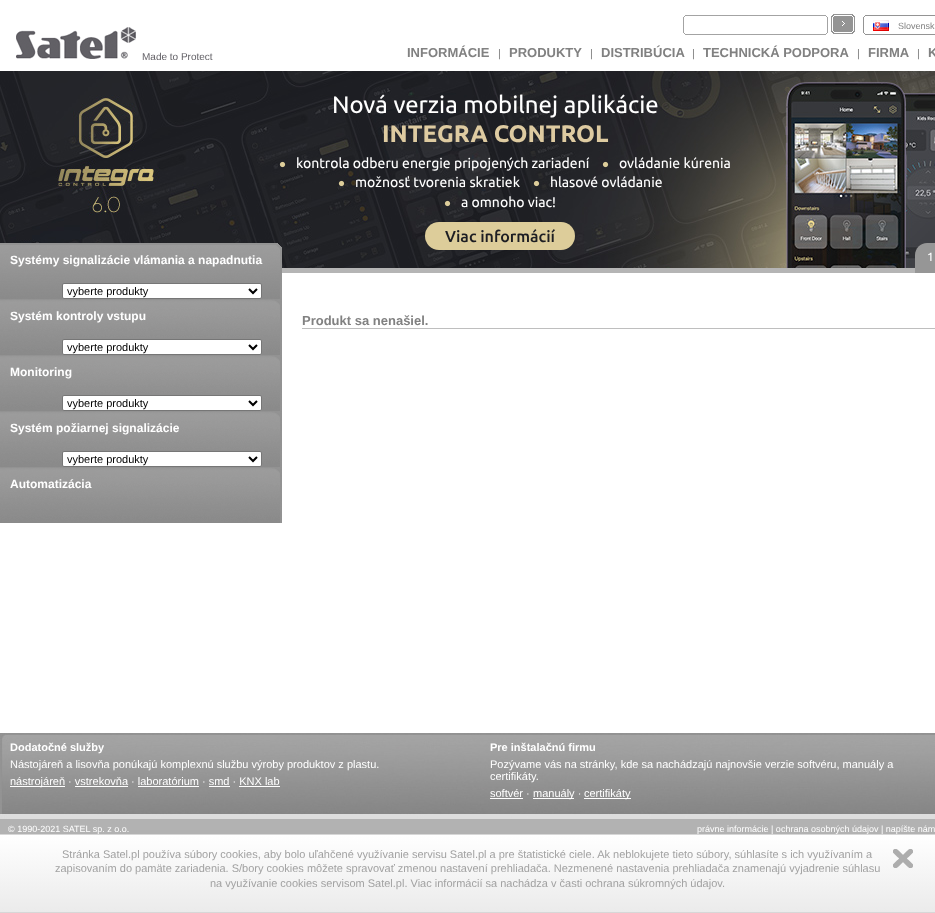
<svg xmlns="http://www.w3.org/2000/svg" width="935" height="913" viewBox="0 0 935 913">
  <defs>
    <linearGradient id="g1" gradientUnits="userSpaceOnUse" x1="468" y1="835" x2="468" y2="912"><stop offset="0" stop-color="#fff"/><stop offset="1" stop-color="#ebebeb"/></linearGradient>
  </defs>
  <rect width="100%" height="100%" fill="#b2b2b2"/>
  <path d="M0 0h935v71H0z" fill="#fff"/>
  <image x="683" y="15" width="145" height="20" href="img/1.png"/>
  <image x="831" y="14" width="24" height="20" href="img/2.png"/>
  <image x="863" y="15" width="72" height="20" href="img/3.png"/>
  <image x="873" y="20" width="16" height="11" href="img/4.png"/>
  <image x="16" y="27" width="120" height="32" href="img/5.png"/>
  <image x="0" y="71" width="935" height="197" href="img/6.png"/>
  <image x="279" y="161" width="7" height="7" href="img/7.png"/>
  <image x="602" y="161" width="7" height="7" href="img/8.png"/>
  <image x="338" y="180" width="7" height="7" href="img/9.png"/>
  <image x="533" y="180" width="7" height="7" href="img/10.png"/>
  <image x="444" y="200" width="7" height="7" href="img/11.png"/>
  <rect x="425" y="222" width="150" height="28" rx="14" fill="#ddcd9a"/>
  <path d="M927 243H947V273H915V255C915 248.5 920.5 243 927 243Z" fill="#969696"/>
  <path d="M282 268h633v5H282z" fill="#b5b5b5"/>
  <path d="M0 273h935v460H0z" fill="#fff"/>
  <image x="0" y="243" width="282" height="56" href="img/12.png"/>
  <rect x="62.5" y="283.5" width="199" height="15" rx="1.5" fill="#fff" stroke="#767676"/>
  <path d="M249 289L253 293L257 289" fill="none" stroke="#000" stroke-width="2"/>
  <image x="0" y="299" width="282" height="56" href="img/13.png"/>
  <rect x="62.5" y="339.5" width="199" height="15" rx="1.5" fill="#fff" stroke="#767676"/>
  <path d="M249 345L253 349L257 345" fill="none" stroke="#000" stroke-width="2"/>
  <image x="0" y="355" width="282" height="56" href="img/13.png"/>
  <rect x="62.5" y="395.5" width="199" height="15" rx="1.5" fill="#fff" stroke="#767676"/>
  <path d="M249 401L253 405L257 401" fill="none" stroke="#000" stroke-width="2"/>
  <image x="0" y="411" width="282" height="56" href="img/13.png"/>
  <rect x="62.5" y="451.5" width="199" height="15" rx="1.5" fill="#fff" stroke="#767676"/>
  <path d="M249 457L253 461L257 457" fill="none" stroke="#000" stroke-width="2"/>
  <image x="0" y="467" width="282" height="56" href="img/13.png"/>
  <path d="M302 328h633v1H302z" fill="#bebebe"/>
  <image x="0" y="733" width="935" height="86" href="img/14.png"/>
  <path d="M10 786h55v1H10z" fill="#fff"/>
  <path d="M75 786h53v1H75z" fill="#fff"/>
  <path d="M138 786h61v1H138z" fill="#fff"/>
  <path d="M209 786h21v1H209z" fill="#fff"/>
  <path d="M239 786h41v1H239z" fill="#fff"/>
  <path d="M490 798h33v1H490z" fill="#fff"/>
  <path d="M533 798h41v1H533z" fill="#fff"/>
  <path d="M584 798h47v1H584z" fill="#fff"/>
  <path d="M0 835h935v77H0z" fill="url(#g1)"/>
  <path d="M0 834h935v1H0z" fill="#d7d7d7"/>
  <path d="M0 912h935v1H0z" fill="#d7d7d7"/>
  <image x="893" y="849" width="20" height="19" href="img/15.png"/>
  <text x="898" y="29" font-family="Liberation Sans" font-size="9" fill="#818181">Slovensk</text>
  <text x="142" y="60" font-family="Liberation Sans" font-size="10" fill="#626066">Made to Protect</text>
  <text x="407" y="57" font-family="Liberation Sans" font-size="13" font-weight="bold" fill="#818181">INFORMÁCIE</text>
  <text x="498" y="57" font-family="Liberation Sans" font-size="11" fill="#818181">|</text>
  <text x="509" y="57" font-family="Liberation Sans" font-size="13" font-weight="bold" fill="#818181">PRODUKTY</text>
  <text x="590" y="57" font-family="Liberation Sans" font-size="11" fill="#818181">|</text>
  <text x="601" y="57" font-family="Liberation Sans" font-size="13" font-weight="bold" fill="#818181">DISTRIBÚCIA</text>
  <text x="692" y="57" font-family="Liberation Sans" font-size="11" fill="#818181">|</text>
  <text x="703" y="57" font-family="Liberation Sans" font-size="13" font-weight="bold" fill="#818181">TECHNICKÁ PODPORA</text>
  <text x="857" y="57" font-family="Liberation Sans" font-size="11" fill="#818181">|</text>
  <text x="868" y="57" font-family="Liberation Sans" font-size="13" font-weight="bold" fill="#818181">FIRMA</text>
  <text x="917" y="57" font-family="Liberation Sans" font-size="11" fill="#818181">|</text>
  <text x="928" y="57" font-family="Liberation Sans" font-size="13" font-weight="bold" fill="#818181">K</text>
  <text x="332" y="113" font-family="Ubuntu" font-size="24" fill="#fff">Nová verzia mobilnej aplikácie</text>
  <text x="382" y="142" font-family="Ubuntu" font-size="24" font-weight="bold" fill="#decba1">INTEGRA CONTROL</text>
  <g font-family="Ubuntu" font-size="14" fill="#fff">
    <text x="296" y="168">kontrola odberu energie pripojených zariadení</text>
    <text x="619" y="168">ovládanie kúrenia</text>
    <text x="355" y="187">možnosť tvorenia skratiek</text>
    <text x="550" y="187">hlasové ovládanie</text>
    <text x="461" y="207">a omnoho viac!</text>
  </g>
  <text x="445" y="242" font-family="Ubuntu" font-size="16" font-weight="500" fill="#1d1e23">Viac informácií</text>
  <text x="927" y="261" font-family="Ubuntu" font-size="12" fill="#fff">1</text>
  <text x="10" y="264" font-family="Liberation Sans" font-size="12" font-weight="bold" fill="#fff">Systémy signalizácie vlámania a napadnutia</text>
  <text x="67" y="295" font-family="Liberation Sans" font-size="11" fill="#000">vyberte produkty</text>
  <text x="10" y="320" font-family="Liberation Sans" font-size="12" font-weight="bold" fill="#fff">Systém kontroly vstupu</text>
  <text x="67" y="351" font-family="Liberation Sans" font-size="11" fill="#000">vyberte produkty</text>
  <text x="10" y="376" font-family="Liberation Sans" font-size="12" font-weight="bold" fill="#fff">Monitoring</text>
  <text x="67" y="407" font-family="Liberation Sans" font-size="11" fill="#000">vyberte produkty</text>
  <text x="10" y="432" font-family="Liberation Sans" font-size="12" font-weight="bold" fill="#fff">Systém požiarnej signalizácie</text>
  <text x="67" y="463" font-family="Liberation Sans" font-size="11" fill="#000">vyberte produkty</text>
  <text x="10" y="488" font-family="Liberation Sans" font-size="12" font-weight="bold" fill="#fff">Automatizácia</text>
  <text x="302" y="325" font-family="Liberation Sans" font-size="13" font-weight="bold" fill="#818181">Produkt sa nenašiel.</text>
  <text x="10" y="751" font-family="Liberation Sans" font-size="11" font-weight="bold" fill="#fff">Dodatočné služby</text>
  <g font-family="Liberation Sans" font-size="11" fill="#fff">
    <text x="10" y="768">Nástojáreň a lisovňa ponúkajú komplexnú službu výroby produktov z plastu.</text>
    <text x="10" y="785">nástrojáreň · vstrekovňa · laboratórium · smd · KNX lab</text>
  </g>
  <text x="490" y="751" font-family="Liberation Sans" font-size="11" font-weight="bold" fill="#fff">Pre inštalačnú firmu</text>
  <g font-family="Liberation Sans" font-size="11" fill="#fff">
    <text x="490" y="768">Pozývame vás na stránky, kde sa nachádzajú najnovšie verzie softvéru, manuály a</text>
    <text x="490" y="780">certifikáty.</text>
    <text x="490" y="797">softvér ·</text>
    <text x="533" y="797">manuály ·</text>
    <text x="584" y="797">certifikáty</text>
  </g>
  <g font-family="Liberation Sans" font-size="9" fill="#fff">
    <text x="8" y="832">© 1990-2021 SATEL sp. z o.o.</text>
    <text x="697" y="832">právne informácie | ochrana osobných údajov | napíšte nám</text>
  </g>
  <g font-family="Liberation Sans" font-size="11" fill="#a2a2a2">
    <text x="62" y="858">Stránka Satel.pl používa súbory cookies, aby bolo uľahčené využívanie servisu Satel.pl a pre štatistické ciele. Ak neblokujete tieto súbory, súhlasíte s ich využívaním a</text>
    <text x="55" y="872">zapisovaním do pamäte zariadenia. S/bory cookies môžete spravovať zmenou nastavení prehliadača. Nezmenené nastavenia prehliadača znamenajú vyjadrenie súhlasu</text>
    <text x="210" y="887">na využívanie cookies servisom Satel.pl. Viac informácií sa nachádza v časti ochrana súkromných údajov.</text>
  </g>
</svg>
